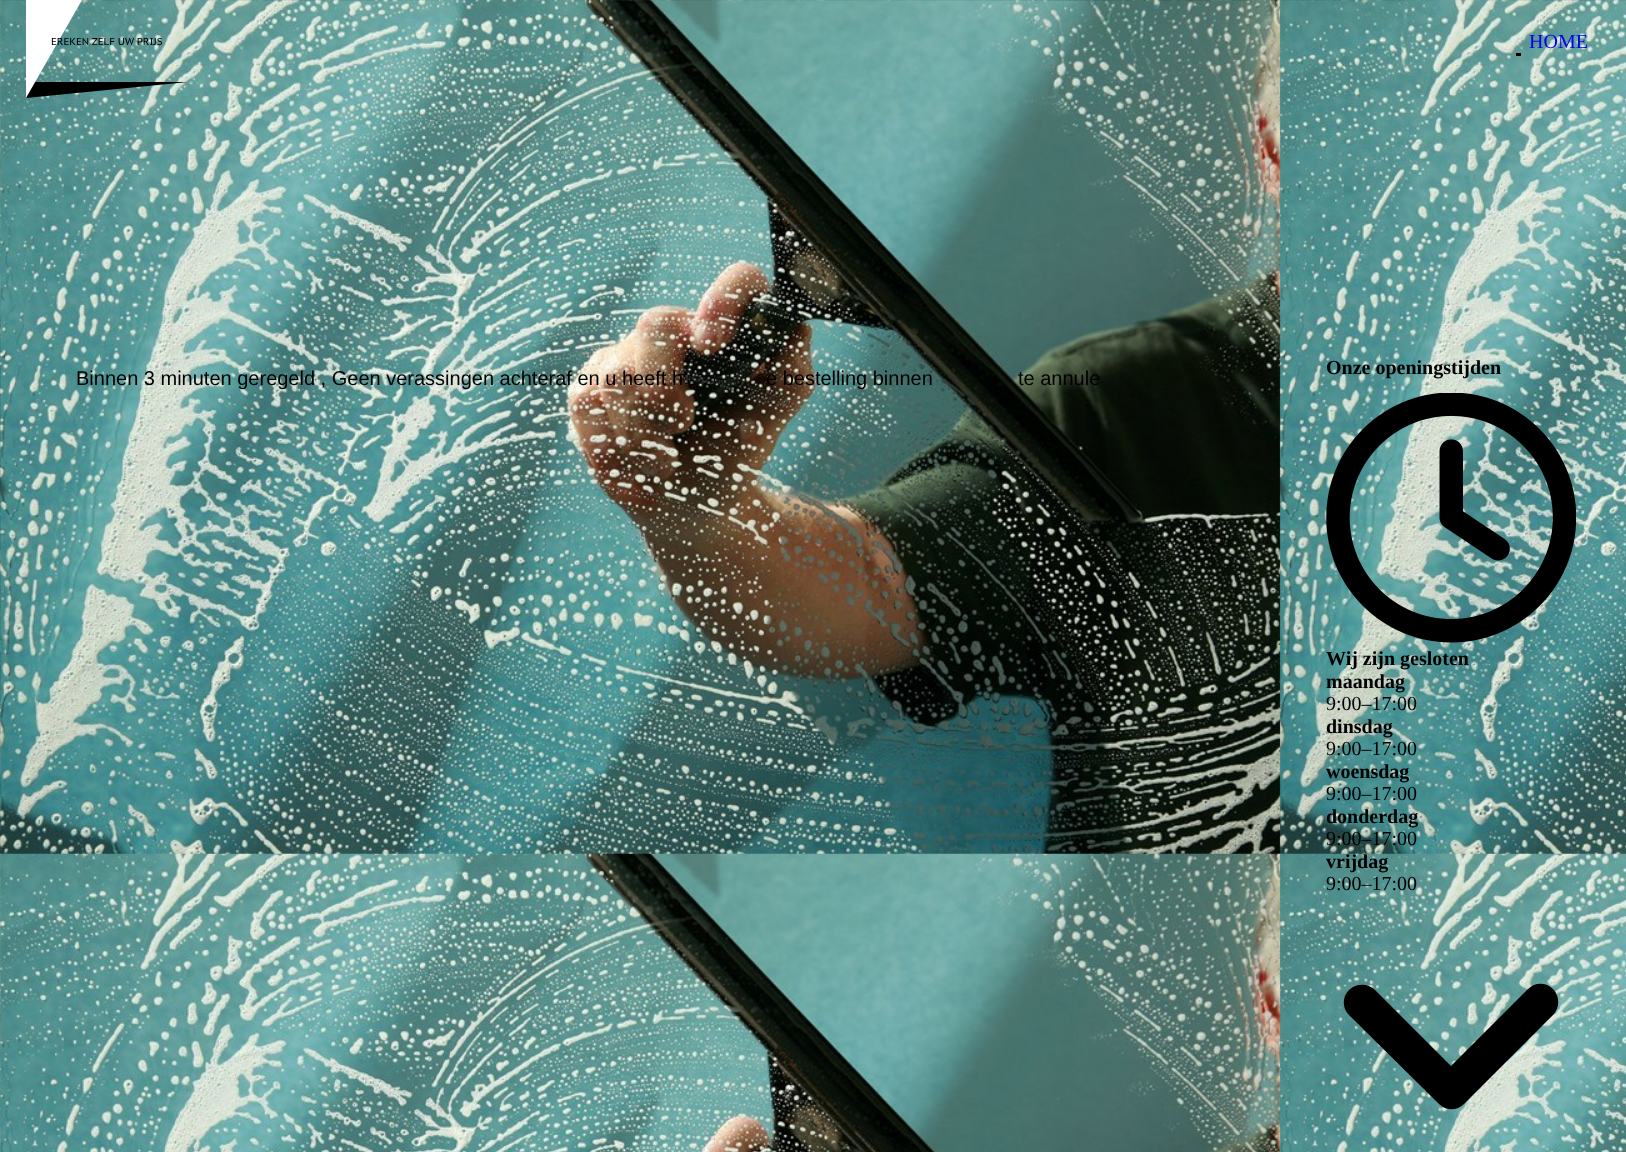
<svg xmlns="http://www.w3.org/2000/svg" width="1626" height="1152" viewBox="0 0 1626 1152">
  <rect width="100%" height="100%" fill="#fff"/>
  <image x="0" y="0" width="1626" height="1152" href="img/1.png"/>
  <path d="M26 98V82H188Z" fill="#000"/>
  <path d="M26 98V0H82Z" fill="#fff"/>
  <path d="M1516 53h5v3H1516z" fill="#000"/>
  <image x="1326" y="393" width="250" height="250" href="img/2.png"/>
  <path d="M1439 1104C1446 1111 1457 1111 1464 1104L1553 1015C1560 1008 1560 996 1553 989C1546 982 1535 982 1528 989L1451 1066L1375 990C1368 983 1356 983 1349 990C1342 997 1342 1008 1349 1015Z" fill="#000"/>
  <text x="51" y="45" font-family="PT Sans Caption" font-size="10" fill="#000">EREKEN ZELF UW PRIJS</text>
  <text x="1529" y="48" font-family="Liberation Serif" font-size="20" fill="#00e">HOME</text>
  <g font-family="Liberation Sans" font-size="20" fill="#000">
    <text x="76" y="385">Binnen 3 minuten geregeld , Geen verassingen achteraf en u heeft h</text>
    <text x="766" y="385">e bestelling binnen</text>
    <text x="1018" y="385">te annule</text>
  </g>
  <g font-family="Liberation Serif" font-size="20" font-weight="bold" fill="#000">
    <text x="1326" y="374">Onze openingstijden</text>
    <text x="1326" y="665">Wij zijn gesloten</text>
    <text x="1326" y="688">maandag</text>
  </g>
  <text x="1326" y="710" font-family="Liberation Serif" font-size="20" fill="#000">9:00–17:00</text>
  <text x="1326" y="733" font-family="Liberation Serif" font-size="20" font-weight="bold" fill="#000">dinsdag</text>
  <text x="1326" y="755" font-family="Liberation Serif" font-size="20" fill="#000">9:00–17:00</text>
  <text x="1326" y="778" font-family="Liberation Serif" font-size="20" font-weight="bold" fill="#000">woensdag</text>
  <text x="1326" y="800" font-family="Liberation Serif" font-size="20" fill="#000">9:00–17:00</text>
  <text x="1326" y="823" font-family="Liberation Serif" font-size="20" font-weight="bold" fill="#000">donderdag</text>
  <text x="1326" y="845" font-family="Liberation Serif" font-size="20" fill="#000">9:00–17:00</text>
  <text x="1326" y="868" font-family="Liberation Serif" font-size="20" font-weight="bold" fill="#000">vrijdag</text>
  <text x="1326" y="890" font-family="Liberation Serif" font-size="20" fill="#000">9:00–17:00</text>
</svg>
